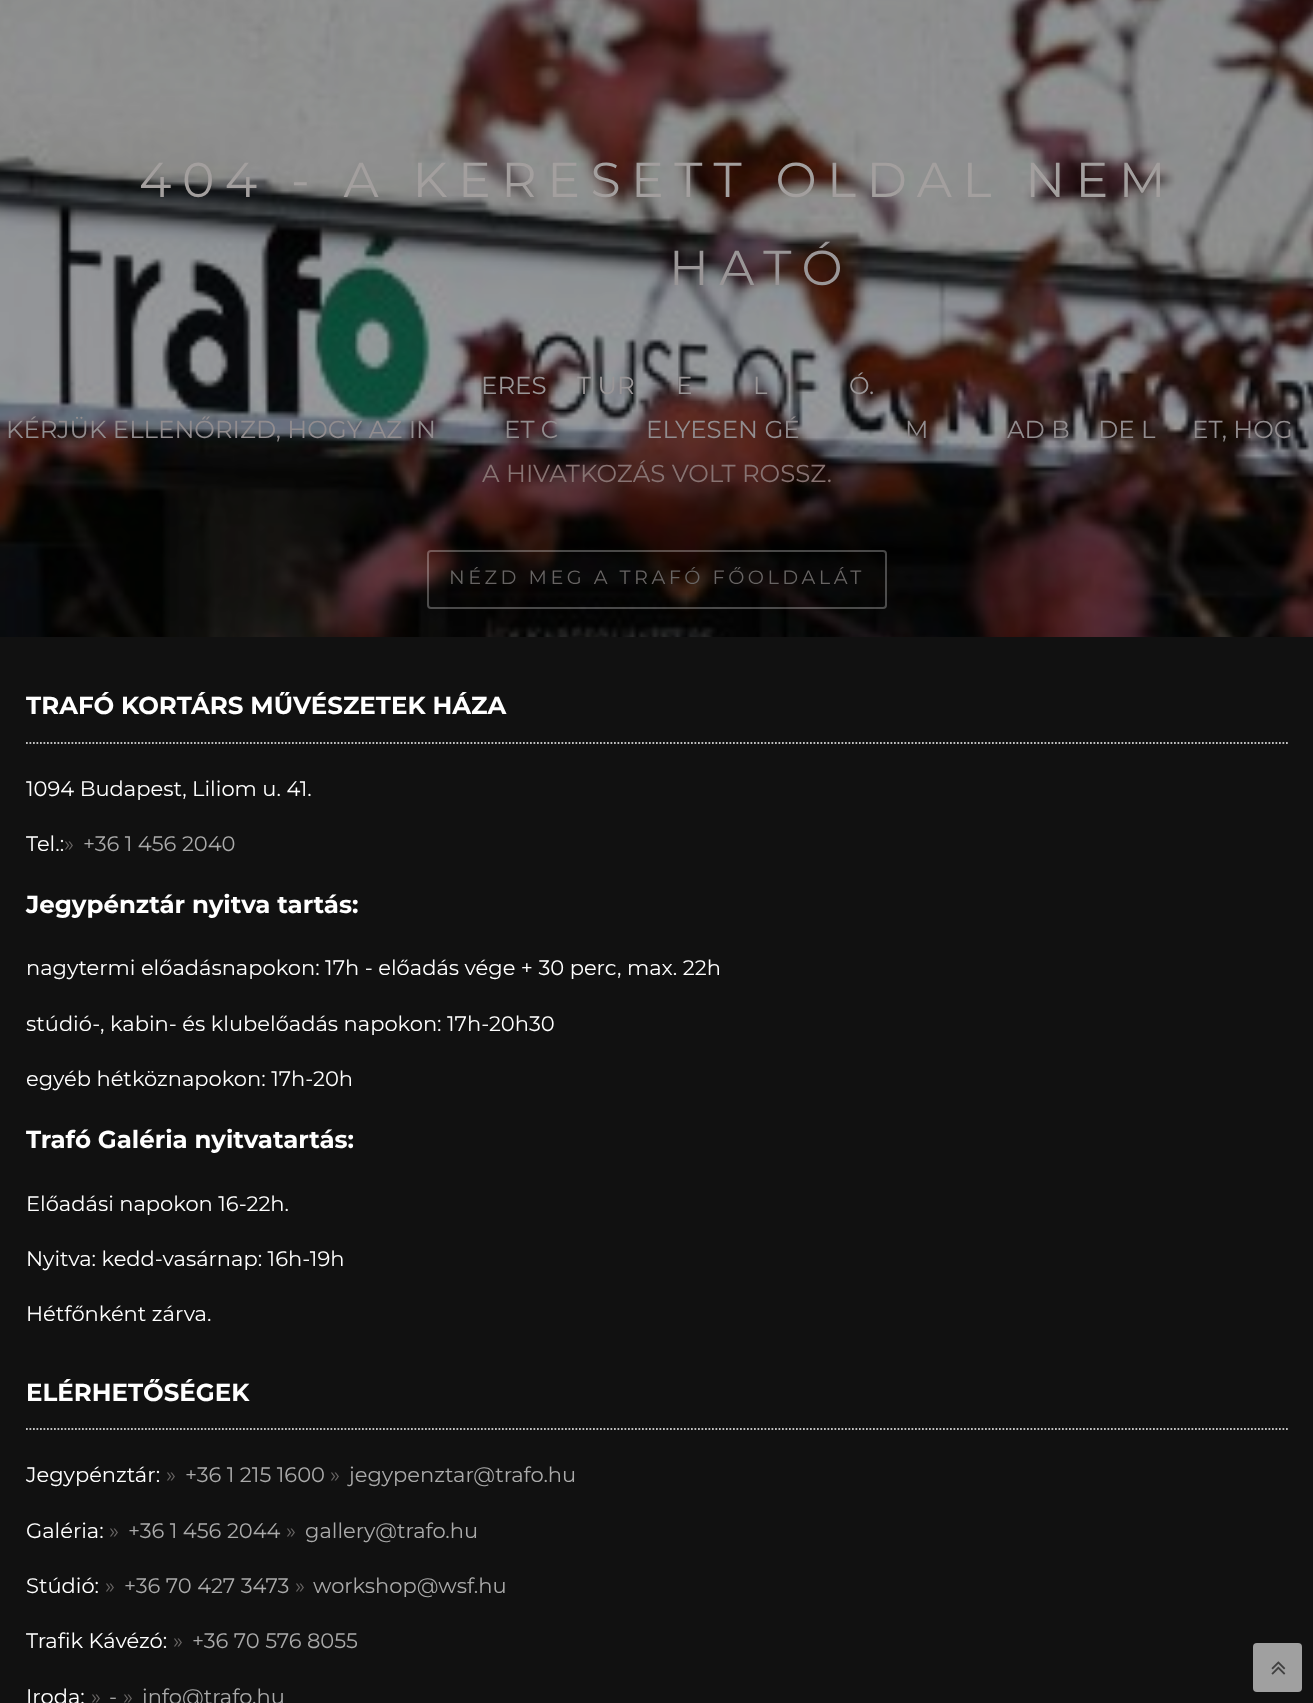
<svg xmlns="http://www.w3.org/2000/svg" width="1313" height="1703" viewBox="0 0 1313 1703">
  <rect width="100%" height="100%" fill="#fff"/>
  <image x="0" y="0" width="1313" height="637" href="img/1.png"/>
  <rect x="428" y="551" width="458" height="57" rx="3" fill="none" stroke="#ffffff47" stroke-width="2"/>
  <path d="M0 637h1313v1066H0z" fill="#111"/>
  <path d="M26 743H1288" fill="none" stroke="#c2c2c2" stroke-width="1.8" stroke-dasharray="1.75 1.75"/>
  <path d="M26 1429H1288" fill="none" stroke="#c2c2c2" stroke-width="1.8" stroke-dasharray="1.75 1.75"/>
  <rect x="1253" y="1643" width="49" height="49" rx="4" fill="#a0a0a0"/>
  <image x="1271" y="1661" width="15" height="14" href="img/2.png"/>
  <text x="139" y="197" font-family="Montserrat" font-size="49" letter-spacing="10.5" fill="#a39f9e">404 - A KERESETT OLDAL NEM</text>
  <text x="669" y="285" font-family="Montserrat" font-size="49" letter-spacing="10.5" fill="#9a9697">HATÓ</text>
  <g font-family="Montserrat" font-size="24.5" fill="#9a9697">
    <text x="481" y="394">ERES</text>
    <text x="577" y="394">T UR</text>
    <text x="676" y="394">E</text>
    <text x="753" y="394">L</text>
    <text x="849" y="394">Ó.</text>
  </g>
  <g font-family="Montserrat" font-size="24.5" fill="#928d8f">
    <text x="6" y="438">KÉRJÜK ELLENŐRIZD, HOGY AZ IN</text>
    <text x="504" y="438">ET C</text>
    <text x="646" y="438">ELYESEN GÉ</text>
    <text x="905" y="438">M</text>
    <text x="1007" y="438">AD B</text>
    <text x="1098" y="438">DE L</text>
    <text x="1192" y="438">ET, HOG</text>
  </g>
  <text x="482" y="482" font-family="Montserrat" font-size="24.5" fill="#877372">A HIVATKOZÁS VOLT ROSSZ.</text>
  <text x="449" y="584" font-family="Montserrat" font-size="19.25" letter-spacing="3.5" fill="#686564">NÉZD MEG A TRAFÓ FŐOLDALÁT</text>
  <text x="26" y="714" font-family="Montserrat" font-size="24.5" font-weight="bold" fill="#fff">TRAFÓ KORTÁRS MŰVÉSZETEK HÁZA</text>
  <g font-family="Montserrat" font-size="21" fill="#fff">
    <text x="26" y="796">1094 Budapest, Liliom u. 41.</text>
    <text x="26" y="851">Tel.:</text>
  </g>
  <text x="64" y="851" font-family="Montserrat" font-size="21" fill="#686564">»</text>
  <text x="83" y="851" font-family="Montserrat" font-size="21" fill="#aaa">+36 1 456 2040</text>
  <text x="26" y="913" font-family="Montserrat" font-size="24.5" font-weight="bold" fill="#fff">Jegypénztár nyitva tartás:</text>
  <g font-family="Montserrat" font-size="21" fill="#fff">
    <text x="26" y="975">nagytermi előadásnapokon: 17h - előadás vége + 30 perc, max. 22h</text>
    <text x="26" y="1031">stúdió-, kabin- és klubelőadás napokon: 17h-20h30</text>
    <text x="26" y="1086">egyéb hétköznapokon: 17h-20h</text>
  </g>
  <text x="26" y="1148" font-family="Montserrat" font-size="24.5" font-weight="bold" fill="#fff">Trafó Galéria nyitvatartás:</text>
  <g font-family="Montserrat" font-size="21" fill="#fff">
    <text x="26" y="1211">Előadási napokon 16-22h.</text>
    <text x="26" y="1266">Nyitva: kedd-vasárnap: 16h-19h</text>
    <text x="26" y="1321">Hétfőnként zárva.</text>
  </g>
  <text x="26" y="1401" font-family="Montserrat" font-size="24.5" font-weight="bold" fill="#fff">ELÉRHETŐSÉGEK</text>
  <text x="26" y="1482" font-family="Montserrat" font-size="21" fill="#fff">Jegypénztár:</text>
  <text x="166" y="1482" font-family="Montserrat" font-size="21" fill="#686564">»</text>
  <text x="185" y="1482" font-family="Montserrat" font-size="21" fill="#aaa">+36 1 215 1600</text>
  <text x="330" y="1482" font-family="Montserrat" font-size="21" fill="#686564">»</text>
  <text x="349" y="1482" font-family="Montserrat" font-size="21" fill="#aaa">jegypenztar@trafo.hu</text>
  <text x="26" y="1538" font-family="Montserrat" font-size="21" fill="#fff">Galéria:</text>
  <text x="109" y="1538" font-family="Montserrat" font-size="21" fill="#686564">»</text>
  <text x="128" y="1538" font-family="Montserrat" font-size="21" fill="#aaa">+36 1 456 2044</text>
  <text x="286" y="1538" font-family="Montserrat" font-size="21" fill="#686564">»</text>
  <text x="305" y="1538" font-family="Montserrat" font-size="21" fill="#aaa">gallery@trafo.hu</text>
  <text x="26" y="1593" font-family="Montserrat" font-size="21" fill="#fff">Stúdió:</text>
  <text x="105" y="1593" font-family="Montserrat" font-size="21" fill="#686564">»</text>
  <text x="124" y="1593" font-family="Montserrat" font-size="21" fill="#aaa">+36 70 427 3473</text>
  <text x="295" y="1593" font-family="Montserrat" font-size="21" fill="#686564">»</text>
  <text x="313" y="1593" font-family="Montserrat" font-size="21" fill="#aaa">workshop@wsf.hu</text>
  <text x="26" y="1648" font-family="Montserrat" font-size="21" fill="#fff">Trafik Kávézó:</text>
  <text x="173" y="1648" font-family="Montserrat" font-size="21" fill="#686564">»</text>
  <text x="192" y="1648" font-family="Montserrat" font-size="21" fill="#aaa">+36 70 576 8055</text>
  <text x="26" y="1704" font-family="Montserrat" font-size="21" fill="#fff">Iroda:</text>
  <text x="91" y="1704" font-family="Montserrat" font-size="21" fill="#686564">»</text>
  <text x="109" y="1704" font-family="Montserrat" font-size="21" fill="#aaa">-</text>
  <text x="123" y="1704" font-family="Montserrat" font-size="21" fill="#686564">»</text>
  <text x="142" y="1704" font-family="Montserrat" font-size="21" fill="#aaa">info@trafo.hu</text>
</svg>
